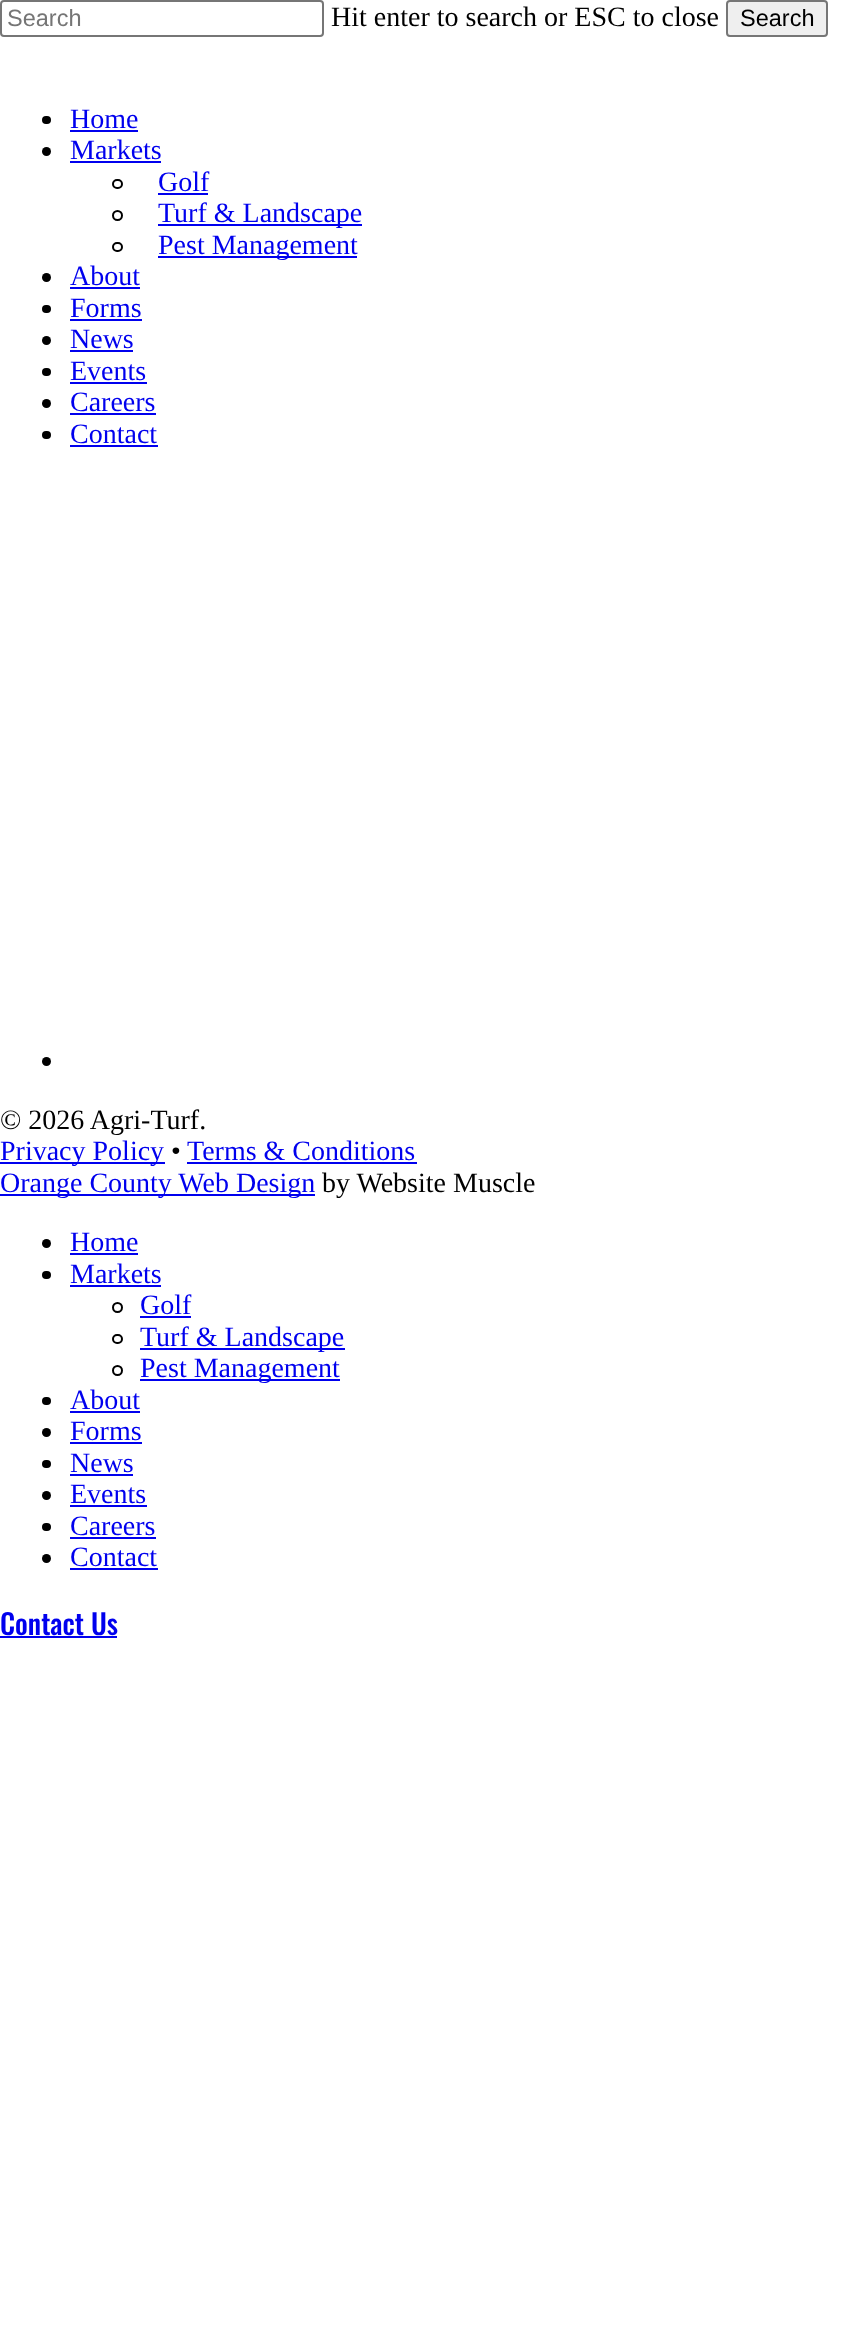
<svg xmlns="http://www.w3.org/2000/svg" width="855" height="2338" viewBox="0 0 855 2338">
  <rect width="100%" height="100%" fill="#fff"/>
  <rect x="1" y="1" width="322" height="35" rx="3" fill="none" stroke="#767676" stroke-width="2"/>
  <rect x="727" y="1" width="100" height="35" rx="3" fill="#efefef" stroke="#767676" stroke-width="2"/>
  <rect x="42" y="116" width="9" height="8" rx="4" fill="#000"/>
  <path d="M70 130h68v2H70z" fill="#00e"/>
  <circle cx="46.5" cy="151.5" r="4.5" fill="#000"/>
  <path d="M70 161h91v2H70z" fill="#00e"/>
  <rect x="113" y="180" width="9" height="8" rx="4" fill="none" stroke="#000" stroke-width="2"/>
  <path d="M158 193h50v2H158z" fill="#00e"/>
  <circle cx="117.5" cy="215.5" r="4.5" fill="none" stroke="#000" stroke-width="2"/>
  <path d="M158 224h204v2H158z" fill="#00e"/>
  <rect x="113" y="243" width="9" height="8" rx="4" fill="none" stroke="#000" stroke-width="2"/>
  <path d="M158 256h199v2H158z" fill="#00e"/>
  <circle cx="46.5" cy="277.5" r="4.5" fill="#000"/>
  <path d="M70 287h70v2H70z" fill="#00e"/>
  <rect x="42" y="305" width="9" height="8" rx="4" fill="#000"/>
  <path d="M70 319h72v2H70z" fill="#00e"/>
  <circle cx="46.5" cy="340.5" r="4.5" fill="#000"/>
  <path d="M70 350h63v2H70z" fill="#00e"/>
  <rect x="42" y="368" width="9" height="8" rx="4" fill="#000"/>
  <path d="M70 382h77v2H70z" fill="#00e"/>
  <circle cx="46.5" cy="403.5" r="4.5" fill="#000"/>
  <path d="M70 413h86v2H70z" fill="#00e"/>
  <rect x="42" y="431" width="9" height="8" rx="4" fill="#000"/>
  <path d="M70 445h88v2H70z" fill="#00e"/>
  <circle cx="46.5" cy="1061.5" r="4.5" fill="#000"/>
  <path d="M0 1162h165v2H0z" fill="#00e"/>
  <path d="M187 1162h230v2H187z" fill="#00e"/>
  <path d="M0 1194h315v2H0z" fill="#00e"/>
  <circle cx="46.5" cy="1243.5" r="4.5" fill="#000"/>
  <path d="M70 1253h68v2H70z" fill="#00e"/>
  <rect x="42" y="1271" width="9" height="8" rx="4" fill="#000"/>
  <path d="M70 1285h91v2H70z" fill="#00e"/>
  <circle cx="117.5" cy="1307.5" r="4.5" fill="none" stroke="#000" stroke-width="2"/>
  <path d="M140 1316h51v2H140z" fill="#00e"/>
  <rect x="113" y="1335" width="9" height="8" rx="4" fill="none" stroke="#000" stroke-width="2"/>
  <path d="M140 1348h205v2H140z" fill="#00e"/>
  <circle cx="117.5" cy="1370.5" r="4.5" fill="none" stroke="#000" stroke-width="2"/>
  <path d="M140 1379h200v2H140z" fill="#00e"/>
  <rect x="42" y="1397" width="9" height="8" rx="4" fill="#000"/>
  <path d="M70 1411h70v2H70z" fill="#00e"/>
  <circle cx="46.5" cy="1432.5" r="4.5" fill="#000"/>
  <path d="M70 1442h72v2H70z" fill="#00e"/>
  <rect x="42" y="1460" width="9" height="8" rx="4" fill="#000"/>
  <path d="M70 1474h63v2H70z" fill="#00e"/>
  <circle cx="46.5" cy="1495.5" r="4.5" fill="#000"/>
  <path d="M70 1505h77v2H70z" fill="#00e"/>
  <rect x="42" y="1523" width="9" height="8" rx="4" fill="#000"/>
  <path d="M70 1537h86v2H70z" fill="#00e"/>
  <circle cx="46.5" cy="1558.5" r="4.5" fill="#000"/>
  <path d="M70 1568h88v2H70z" fill="#00e"/>
  <path d="M0 1636h117v2H0z" fill="#00e"/>
  <text x="7" y="26" font-family="Liberation Sans" font-size="23.5" fill="#757575">Search</text>
  <text x="331" y="26" font-family="Liberation Serif" font-size="28" fill="#000">Hit enter to search or ESC to close</text>
  <text x="740" y="26" font-family="Liberation Sans" font-size="23.5" fill="#000">Search</text>
  <g font-family="Liberation Serif" font-size="28" fill="#00e">
    <text x="70" y="128">Home</text>
    <text x="70" y="159">Markets</text>
    <text x="158" y="191">Golf</text>
    <text x="158" y="222">Turf &amp; Landscape</text>
    <text x="158" y="254">Pest Management</text>
    <text x="70" y="285">About</text>
    <text x="70" y="317">Forms</text>
    <text x="70" y="348">News</text>
    <text x="70" y="380">Events</text>
    <text x="70" y="411">Careers</text>
    <text x="70" y="443">Contact</text>
  </g>
  <text x="0" y="1129" font-family="Liberation Serif" font-size="28" fill="#000">© 2026 Agri-Turf.</text>
  <text x="0" y="1160" font-family="Liberation Serif" font-size="28" fill="#00e">Privacy Policy</text>
  <text x="171" y="1160" font-family="Liberation Serif" font-size="28" fill="#000">•</text>
  <g font-family="Liberation Serif" font-size="28" fill="#00e">
    <text x="187" y="1160">Terms &amp; Conditions</text>
    <text x="0" y="1192">Orange County Web Design</text>
  </g>
  <text x="322" y="1192" font-family="Liberation Serif" font-size="28" fill="#000">by Website Muscle</text>
  <g font-family="Liberation Serif" font-size="28" fill="#00e">
    <text x="70" y="1251">Home</text>
    <text x="70" y="1283">Markets</text>
    <text x="140" y="1314">Golf</text>
    <text x="140" y="1346">Turf &amp; Landscape</text>
    <text x="140" y="1377">Pest Management</text>
    <text x="70" y="1409">About</text>
    <text x="70" y="1440">Forms</text>
    <text x="70" y="1472">News</text>
    <text x="70" y="1503">Events</text>
    <text x="70" y="1535">Careers</text>
    <text x="70" y="1566">Contact</text>
  </g>
  <text x="0" y="1635" font-family="Oswald" font-size="28" font-weight="500" fill="#00e">Contact Us</text>
</svg>
